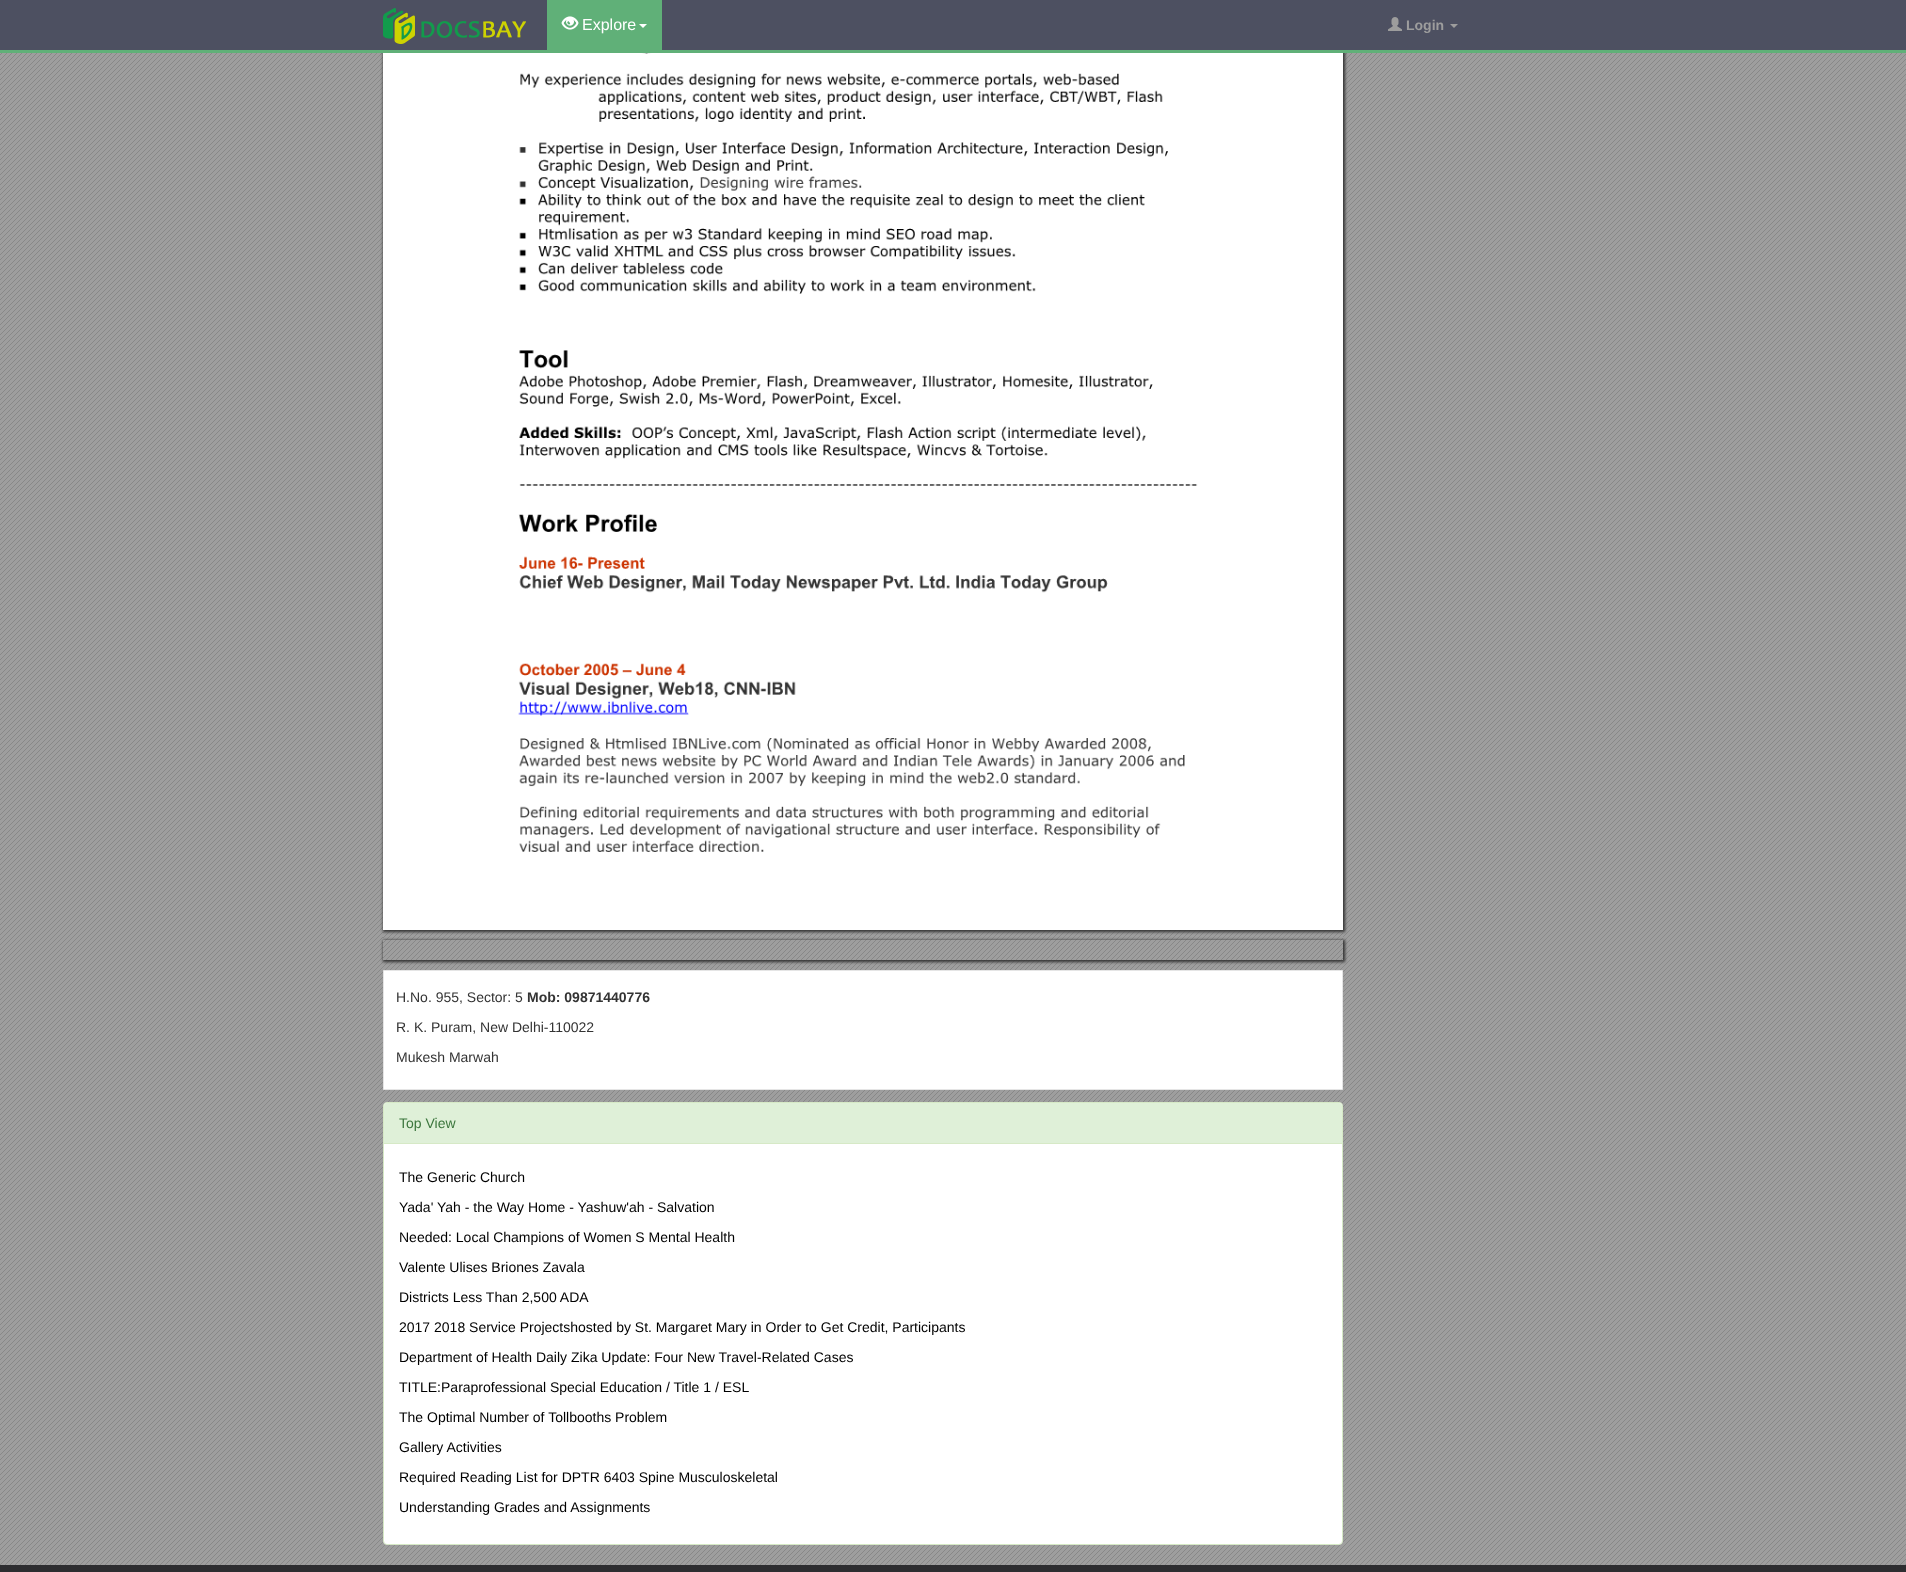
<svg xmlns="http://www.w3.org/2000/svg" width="1906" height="1572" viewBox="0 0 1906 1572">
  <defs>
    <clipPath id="clip1"><path d="M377 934H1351V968H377ZM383 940H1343V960H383Z" clip-rule="evenodd"/></clipPath>
  </defs>
  <rect width="100%" height="100%" fill="#fff"/>
  <image x="0" y="53" width="1906" height="1512" href="img/1.png"/>
  <image x="383" y="930" width="960" height="30" href="img/5.png"/>
  <path d="M383 -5h962v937H383z" fill="#333" filter="blur(1.5px)"/>
  <path d="M0 0h1906v50H0z" fill="#4d5061"/>
  <path d="M0 50h1906v3H0z" fill="#60b078"/>
  <image x="383" y="8" width="143" height="36" href="img/2.png"/>
  <path d="M547 0h115v50H547z" fill="#60b078"/>
  <image x="561" y="16" width="18" height="14" href="img/3.png"/>
  <path d="M639 24H647L643 28Z" fill="#fff"/>
  <image x="1388" y="17" width="14" height="14" href="img/4.png"/>
  <path d="M1450 24H1458L1454 28Z" fill="#9d9d9d"/>
  <image x="383" y="53" width="960" height="877" href="img/6.png"/>
  <g clip-path="url(#clip1)">
    <path d="M383 940h962v22H383z" fill="#333" filter="blur(1.5px)"/>
  </g>
  <path d="M383.5 970.5h959v119H383.5z" fill="#fff" stroke="#e5e5e5"/>
  <rect x="383.5" y="1102.5" width="959" height="442" rx="3.5" fill="#fff" stroke="#d6e9c6"/>
  <path d="M387 1103H1339C1340.5 1103 1342 1104.5 1342 1106V1144H384V1106C384 1104.5 385.5 1103 387 1103Z" fill="#dff0d8"/>
  <path d="M384 1143h958v1H384z" fill="#d6e9c6"/>
  <path d="M0 1565h1906v7H0z" fill="#2d2d30"/>
  <text x="582" y="30" font-family="Liberation Sans" font-size="16" fill="#fff">Explore</text>
  <text x="1406" y="30" font-family="Liberation Sans" font-size="14" font-weight="bold" fill="#9d9d9d">Login</text>
  <text x="396" y="1002" font-family="Liberation Sans" font-size="14" fill="#333">H.No. 955, Sector: 5</text>
  <text x="527" y="1002" font-family="Liberation Sans" font-size="14" font-weight="bold" fill="#333">Mob: 09871440776</text>
  <g font-family="Liberation Sans" font-size="14" fill="#333">
    <text x="396" y="1032">R. K. Puram, New Delhi-110022</text>
    <text x="396" y="1062">Mukesh Marwah</text>
  </g>
  <text x="399" y="1128" font-family="Liberation Sans" font-size="14" fill="#3c763d">Top View</text>
  <g font-family="Liberation Sans" font-size="14" fill="#000">
    <text x="399" y="1182">The Generic Church</text>
    <text x="399" y="1212">Yada' Yah - the Way Home - Yashuw'ah - Salvation</text>
    <text x="399" y="1242">Needed: Local Champions of Women S Mental Health</text>
    <text x="399" y="1272">Valente Ulises Briones Zavala</text>
    <text x="399" y="1302">Districts Less Than 2,500 ADA</text>
    <text x="399" y="1332">2017 2018 Service Projectshosted by St. Margaret Mary in Order to Get Credit, Participants</text>
    <text x="399" y="1362">Department of Health Daily Zika Update: Four New Travel-Related Cases</text>
    <text x="399" y="1392">TITLE:Paraprofessional Special Education / Title 1 / ESL</text>
    <text x="399" y="1422">The Optimal Number of Tollbooths Problem</text>
    <text x="399" y="1452">Gallery Activities</text>
    <text x="399" y="1482">Required Reading List for DPTR 6403 Spine Musculoskeletal</text>
    <text x="399" y="1512">Understanding Grades and Assignments</text>
  </g>
</svg>
